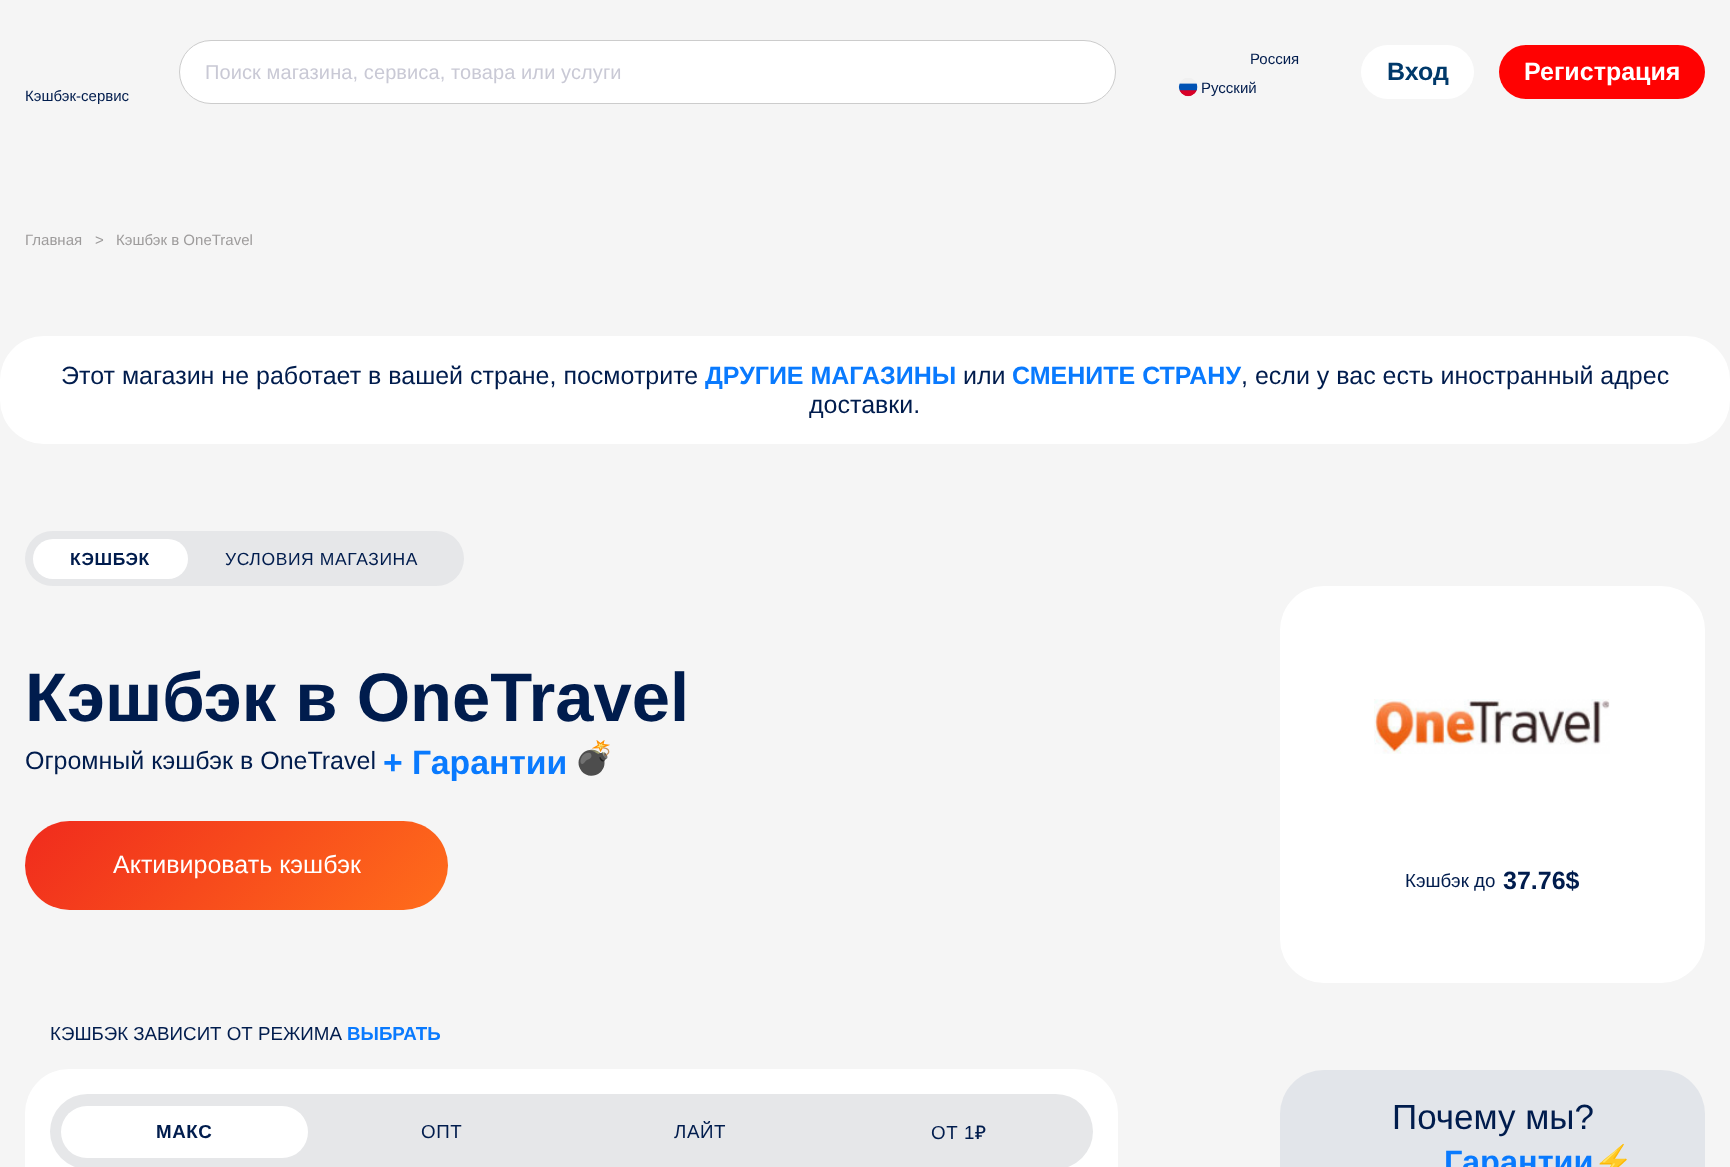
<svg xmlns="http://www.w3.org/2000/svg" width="1730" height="1167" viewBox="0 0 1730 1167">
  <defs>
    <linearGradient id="g1" gradientUnits="userSpaceOnUse" x1="108" y1="738" x2="364" y2="993"><stop offset="0" stop-color="#f02b1d"/><stop offset="1" stop-color="#ff6d1b"/></linearGradient>
  </defs>
  <rect width="100%" height="100%" fill="#f5f5f5"/>
  <rect x="179.5" y="40.5" width="936" height="63" rx="31.5" fill="#fff" stroke="#ccc"/>
  <image x="1178" y="78" width="20" height="19" href="img/1.png"/>
  <rect x="1361" y="45" width="113" height="54" rx="27" fill="#fff"/>
  <rect x="1499" y="45" width="206" height="54" rx="27" fill="#ff0202"/>
  <rect y="336" width="1730" height="108" rx="44" fill="#fff"/>
  <rect x="25" y="531" width="439" height="55" rx="27.5" fill="#e6e7e9"/>
  <rect x="33" y="539" width="155" height="40" rx="20" fill="#fff"/>
  <rect x="25" y="821" width="423" height="89" rx="44.5" fill="url(#g1)"/>
  <rect x="1280" y="586" width="425" height="397" rx="44" fill="#fff"/>
  <image x="1374" y="699" width="236" height="55" href="img/2.png"/>
  <rect x="25" y="1069" width="1093" height="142" rx="44" fill="#fff"/>
  <rect x="50" y="1094" width="1043" height="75" rx="37.5" fill="#e6e7e9"/>
  <rect x="61" y="1106" width="247" height="52" rx="26" fill="#fff"/>
  <rect x="1280" y="1070" width="425" height="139" rx="44" fill="#e2e5ea"/>
  <text x="205" y="79" font-family="Liberation Sans" font-size="20" letter-spacing="0.1" fill="#c9c9d5">Поиск магазина, сервиса, товара или услуги</text>
  <g font-family="Liberation Sans" font-size="15" fill="#001c4d">
    <text x="1250" y="64">Россия</text>
    <text x="1201" y="93">Русский</text>
  </g>
  <text x="1387" y="80" font-family="Liberation Sans" font-size="25" font-weight="bold" fill="#00396a">Вход</text>
  <text x="1524" y="80" font-family="Liberation Sans" font-size="25" font-weight="bold" fill="#fff">Регистрация</text>
  <text x="25" y="101" font-family="Liberation Sans" font-size="15" fill="#001c4d">Кэшбэк-сервис</text>
  <g font-family="Liberation Sans" font-size="15" fill="#9e9c9c">
    <text x="25" y="245">Главная</text>
    <text x="95" y="245">&gt;</text>
    <text x="116" y="245">Кэшбэк в OneTravel</text>
  </g>
  <text x="61" y="384" font-family="Liberation Sans" font-size="25" fill="#001c4d">Этот магазин не работает в вашей стране, посмотрите</text>
  <text x="705" y="384" font-family="Liberation Sans" font-size="25" font-weight="bold" fill="#097afe">ДРУГИЕ МАГАЗИНЫ</text>
  <text x="963" y="384" font-family="Liberation Sans" font-size="25" fill="#001c4d">или</text>
  <text x="1012" y="384" font-family="Liberation Sans" font-size="25" font-weight="bold" fill="#097afe">СМЕНИТЕ СТРАНУ</text>
  <g font-family="Liberation Sans" font-size="25" fill="#001c4d">
    <text x="1241" y="384">, если у вас есть иностранный адрес</text>
    <text x="809" y="413">доставки.</text>
  </g>
  <text x="70" y="565" font-family="Liberation Sans" font-size="17.5" font-weight="bold" letter-spacing="0.6" fill="#001c4d">КЭШБЭК</text>
  <text x="225" y="565" font-family="Liberation Sans" font-size="17.5" letter-spacing="0.6" fill="#001c4d">УСЛОВИЯ МАГАЗИНА</text>
  <text x="25" y="721" font-family="Liberation Sans" font-size="68.75" font-weight="bold" fill="#001c4d">Кэшбэк в OneTravel</text>
  <text x="25" y="769" font-family="Liberation Sans" font-size="25" fill="#001c4d">Огромный кэшбэк в OneTravel</text>
  <text x="383" y="774" font-family="Liberation Sans" font-size="33.75" font-weight="bold" fill="#097afe">+ Гарантии</text>
  <text x="574" y="769" font-family="Noto Color Emoji" font-size="32.5" fill="#001c4d">💣</text>
  <text x="113" y="873" font-family="Liberation Sans" font-size="25" fill="#fff">Активировать кэшбэк</text>
  <text x="1405" y="887" font-family="Liberation Sans" font-size="18.75" fill="#001c4d">Кэшбэк до</text>
  <text x="1503" y="889" font-family="Liberation Sans" font-size="25" font-weight="bold" fill="#001c4d">37.76$</text>
  <text x="50" y="1040" font-family="Liberation Sans" font-size="18.75" fill="#001c4d">КЭШБЭК ЗАВИСИТ ОТ РЕЖИМА</text>
  <text x="347" y="1040" font-family="Liberation Sans" font-size="18.75" font-weight="bold" fill="#097afe">ВЫБРАТЬ</text>
  <text x="156" y="1138" font-family="Liberation Sans" font-size="18.75" font-weight="bold" letter-spacing="0.6" fill="#001c4d">МАКС</text>
  <g font-family="Liberation Sans" font-size="18.75" letter-spacing="0.6" fill="#001c4d">
    <text x="421" y="1138">ОПТ</text>
    <text x="674" y="1138">ЛАЙТ</text>
    <text x="931" y="1139">ОТ 1</text>
  </g>
  <text x="975" y="1139" font-family="Noto Sans" font-size="18.75" font-weight="500" letter-spacing="0.6" fill="#001c4d">₽</text>
  <text x="1392" y="1129" font-family="Liberation Sans" font-size="35" fill="#001c4d">Почему мы?</text>
  <text x="1444" y="1173" font-family="Liberation Sans" font-size="32.5" font-weight="bold" fill="#097afe">Гарантии</text>
  <text x="1593" y="1173" font-family="Noto Color Emoji" font-size="32.5" font-weight="bold" fill="#001c4d">⚡</text>
</svg>
